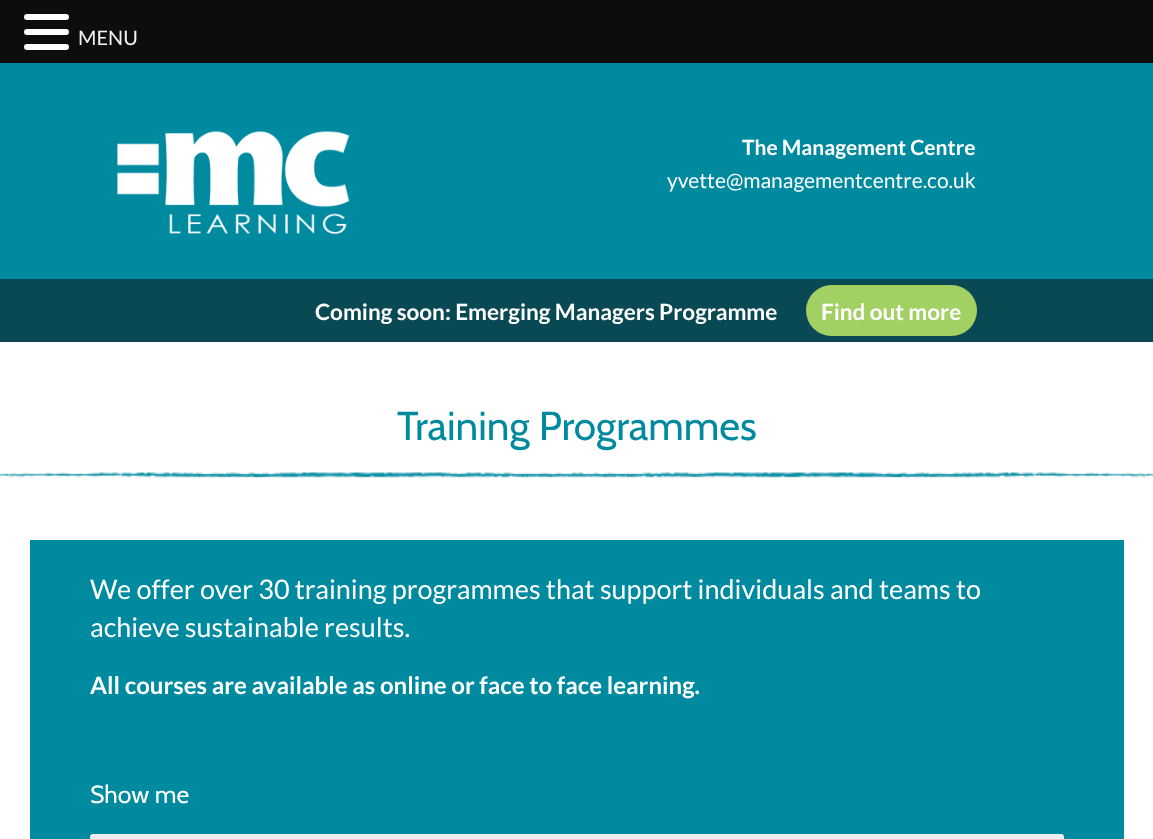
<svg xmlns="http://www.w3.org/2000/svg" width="1153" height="839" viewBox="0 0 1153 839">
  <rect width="100%" height="100%" fill="#fff"/>
  <path d="M0 0h1153v63H0z" fill="#0d0d0d"/>
  <rect x="24" y="14" width="45" height="6" rx="3" fill="#fff"/>
  <rect x="24" y="29" width="45" height="6" rx="3" fill="#fff"/>
  <rect x="24" y="44" width="45" height="6" rx="3" fill="#fff"/>
  <path d="M0 63h1153v216H0z" fill="#008aa0"/>
  <image x="117" y="131" width="233" height="103" href="img/1.png"/>
  <path d="M0 279h1153v63H0z" fill="#094954"/>
  <rect x="806" y="285" width="171" height="51" rx="25.5" fill="#a3d063"/>
  <image x="0" y="472" width="1153" height="6" href="img/2.png"/>
  <path d="M30 540h1094v299H30z" fill="#008aa0"/>
  <rect x="90" y="834" width="974" height="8" rx="3" fill="#efefef"/>
  <text x="78" y="45" font-family="Lato" font-size="20" fill="#f2f2f2">MENU</text>
  <text x="742" y="155" font-family="Lato" font-size="21" font-weight="bold" fill="#fff">The Management Centre</text>
  <text x="667" y="188" font-family="Lato" font-size="21" fill="#fff">yvette@managementcentre.co.uk</text>
  <g font-family="Lato" font-size="22.5" font-weight="bold" fill="#fff">
    <text x="315" y="320">Coming soon: Emerging Managers Programme</text>
    <text x="821" y="320">Find out more</text>
  </g>
  <text x="397" y="440" font-family="Cabin" font-size="40.5" fill="#008aa0">Training Programmes</text>
  <g font-family="Lato" font-size="27" fill="#fff">
    <text x="90" y="599">We offer over 30 training programmes that support individuals and teams to</text>
    <text x="90" y="637">achieve sustainable results.</text>
  </g>
  <text x="90" y="694" font-family="Lato" font-size="24" font-weight="bold" fill="#fff">All courses are available as online or face to face learning.</text>
  <text x="90" y="803" font-family="Cabin" font-size="24.75" fill="#fff">Show me</text>
</svg>
